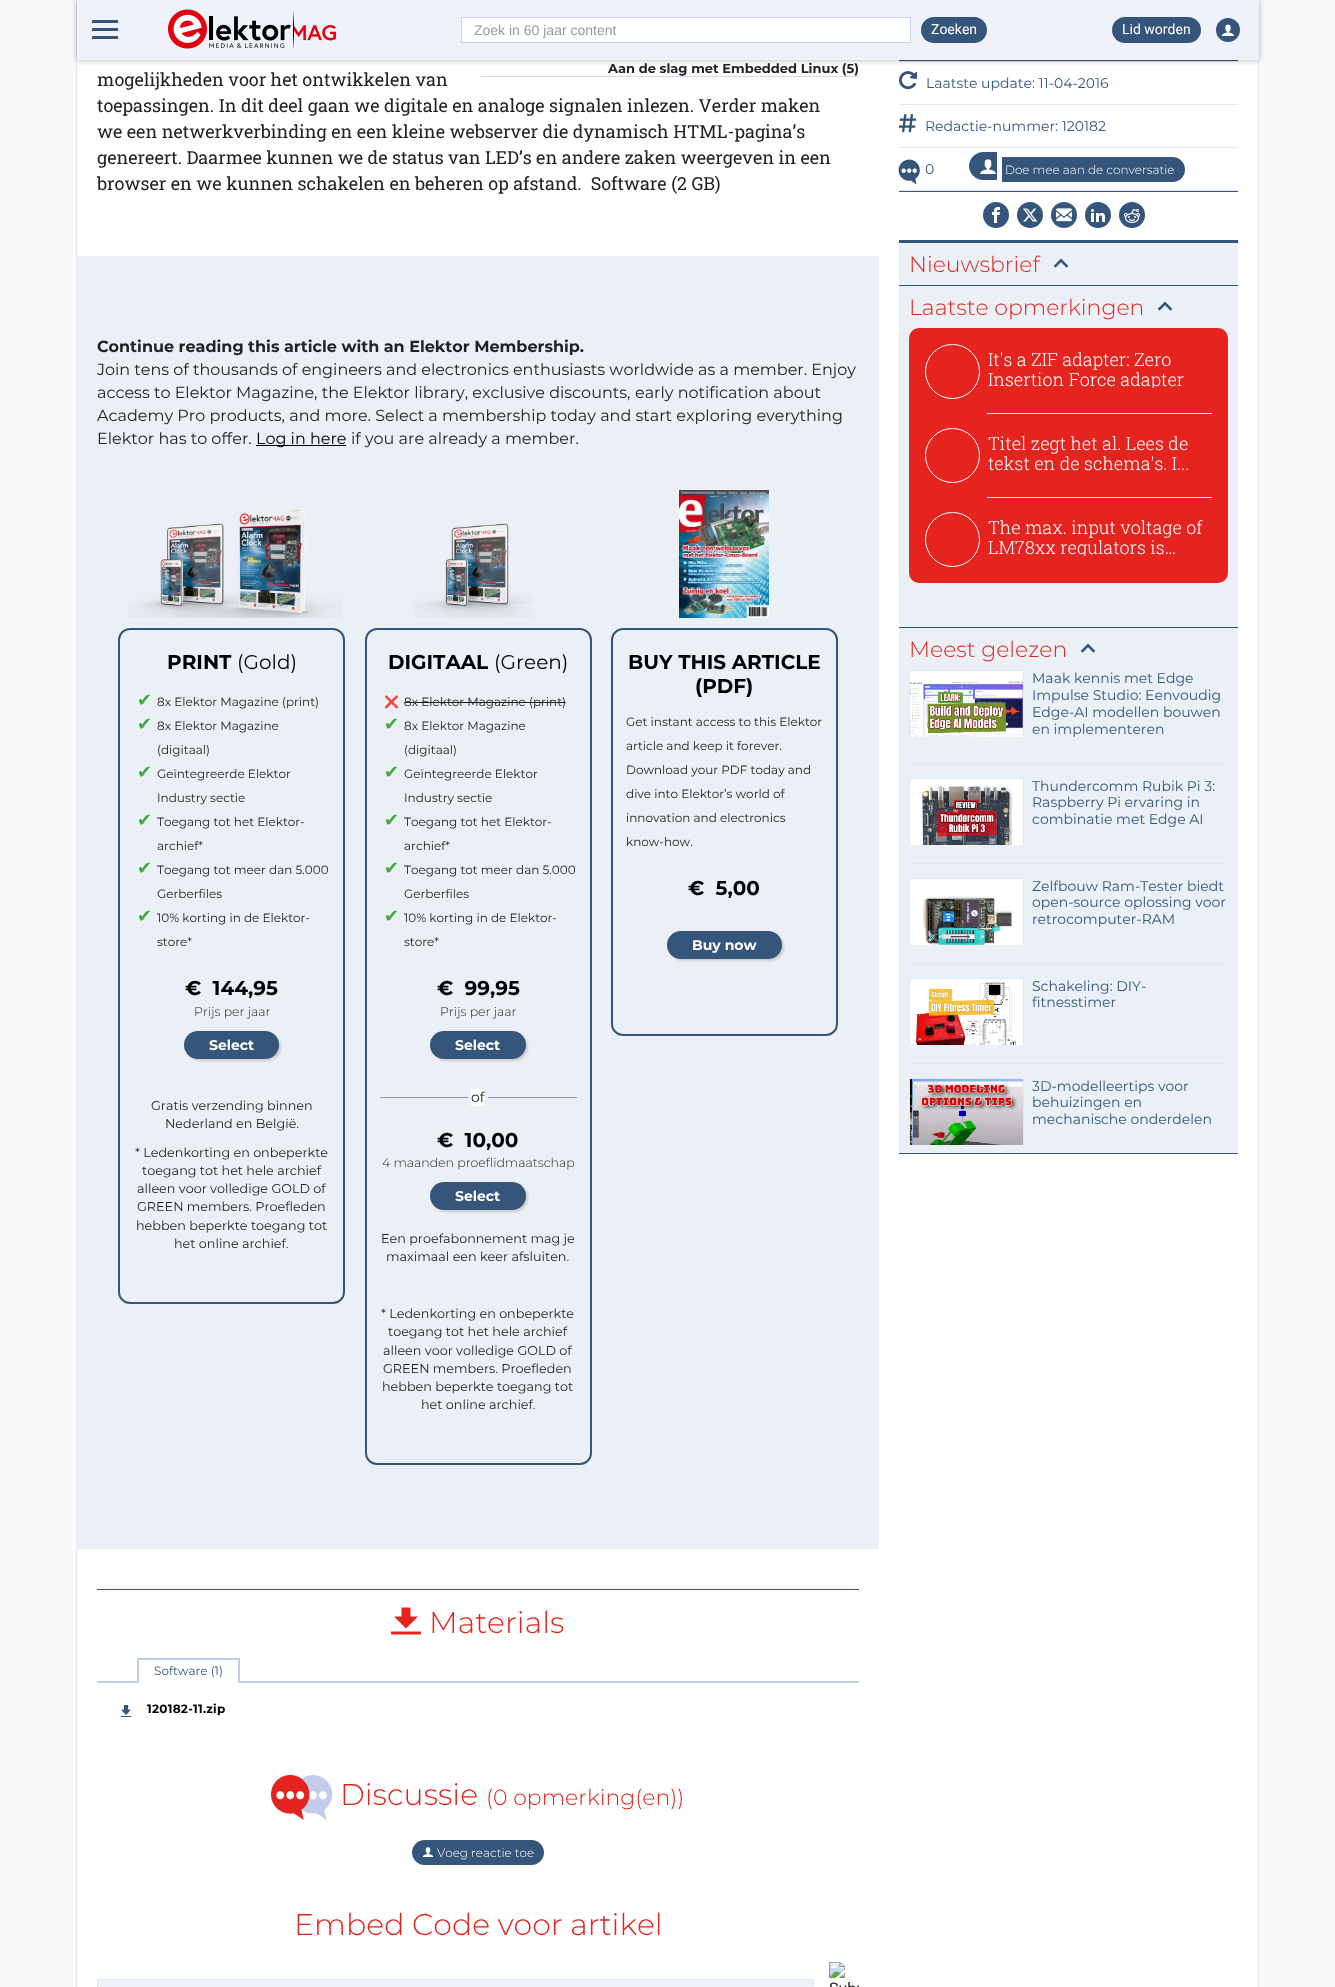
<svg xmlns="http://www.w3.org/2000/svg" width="1335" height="1987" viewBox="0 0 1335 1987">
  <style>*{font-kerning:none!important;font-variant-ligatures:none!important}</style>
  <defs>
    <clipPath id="clip1"><path d="M909 670h115v67H909z"/></clipPath>
    <clipPath id="clip2"><path d="M909 778h115v67H909z"/></clipPath>
    <clipPath id="clip3"><path d="M909 878h115v67H909z"/></clipPath>
    <clipPath id="clip4"><path d="M909 978h115v67H909z"/></clipPath>
    <clipPath id="clip5"><path d="M909 1078h115v67H909z"/></clipPath>
    <clipPath id="clip6"><path d="M983 344h229v44H983z"/></clipPath>
    <clipPath id="clip7"><path d="M983 512h229v44H983z"/></clipPath>
  </defs>
  <rect width="100%" height="100%" fill="#fafafa"/>
  <path d="M77 60h1181v1927H77z" fill="#fff"/>
  <path d="M1258 60h1v1927H1258z" fill="#e0e9f5"/>
  <path d="M76 0h1v1987H76z" fill="#e0e9f5"/>
  <path d="M899 60h339v1H899z" fill="#35557a"/>
  <path d="M899 61h339v1H899z" fill="#e0e6f5"/>
  <path d="M77 0h1182v60H77z" fill="#0000004d" filter="blur(3px)"/>
  <path d="M77 0h1182v60H77z" fill="#f0f2fa"/>
  <path d="M92 20h26v3H92z" fill="#35557a"/>
  <path d="M92 28h26v3H92z" fill="#35557a"/>
  <path d="M92 36h26v3H92z" fill="#35557a"/>
  <image x="168" y="9" width="168" height="41" href="img/1.png"/>
  <path d="M461.5 17.5h449v25H461.5z" fill="#fff" stroke="#cad1ed"/>
  <rect x="921" y="17" width="66" height="26" rx="13" fill="#35557a"/>
  <rect x="1112" y="17" width="89" height="26" rx="13" fill="#35557a"/>
  <circle cx="1228" cy="30" r="12" fill="#35557a"/>
  <image x="1221" y="24" width="14" height="12" href="img/2.png"/>
  <path d="M481 76h378v1H481z" fill="#cfd9ef"/>
  <path d="M77 256h20v1293H77z" fill="#ebf0f6"/>
  <path d="M97 256h782v1293H97z" fill="#ebf0f6"/>
  <path d="M256 445h90v1H256z" fill="#000"/>
  <image x="128" y="508" width="214" height="110" href="img/3.png"/>
  <rect x="119" y="629" width="225" height="674" rx="11" fill="none" stroke="#35557a" stroke-width="2"/>
  <rect x="186" y="1033" width="95" height="28" rx="14" fill="#ccc" filter="blur(1px)"/>
  <rect x="184" y="1031" width="95" height="28" rx="14" fill="#35557a"/>
  <image x="413" y="523" width="120" height="95" href="img/4.png"/>
  <rect x="366" y="629" width="225" height="835" rx="11" fill="none" stroke="#35557a" stroke-width="2"/>
  <path d="M404 702h162v1H404z" fill="#222"/>
  <rect x="432" y="1033" width="96" height="28" rx="14" fill="#ccc" filter="blur(1px)"/>
  <rect x="430" y="1031" width="96" height="28" rx="14" fill="#35557a"/>
  <path d="M380 1097h88v1H380z" fill="#979797"/>
  <path d="M471 1089h14v17H471z" fill="#fff"/>
  <path d="M488 1097h89v1H488z" fill="#979797"/>
  <rect x="432" y="1184" width="96" height="28" rx="14" fill="#ccc" filter="blur(1px)"/>
  <rect x="430" y="1182" width="96" height="28" rx="14" fill="#35557a"/>
  <image x="679" y="490" width="90" height="128" href="img/5.png"/>
  <rect x="612" y="629" width="225" height="406" rx="11" fill="none" stroke="#35557a" stroke-width="2"/>
  <rect x="669" y="933" width="115" height="28" rx="14" fill="#ccc" filter="blur(1px)"/>
  <rect x="667" y="931" width="115" height="28" rx="14" fill="#35557a"/>
  <path d="M97 1589h762v1H97z" fill="#35557a"/>
  <image x="391" y="1607" width="30" height="28" href="img/6.png"/>
  <path d="M137 1658h103v2H137z" fill="#c1cdea"/>
  <path d="M238 1658h2v23H238z" fill="#c1cdea"/>
  <path d="M137 1658h2v23H137z" fill="#c1cdea"/>
  <path d="M97 1681h762v2H97z" fill="#c1cdea"/>
  <path d="M139 1681h99v2H139z" fill="#fff"/>
  <image x="121" y="1705" width="10" height="12" href="img/7.png"/>
  <image x="271" y="1775" width="62" height="45" href="img/8.png"/>
  <rect x="412" y="1840" width="132" height="25" rx="12.5" fill="#35557a"/>
  <image x="422" y="1847" width="12" height="10" href="img/9.png"/>
  <path d="M97.5 1979.5h716v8H97.5z" fill="#f0f2fa" stroke="#e0e6f5"/>
  <image x="829" y="1962" width="30" height="25" href="img/10.png"/>
  <image x="899" y="71" width="18" height="19" href="img/11.png"/>
  <path d="M899 104h339v1H899z" fill="#e0e6f5"/>
  <image x="899" y="114" width="18" height="19" href="img/12.png"/>
  <path d="M899 147h339v1H899z" fill="#e0e6f5"/>
  <image x="898" y="159" width="22" height="26" href="img/13.png"/>
  <path d="M983 152H997V180H983C975.5 180 969 173.5 969 166C969 158.5 975.5 152 983 152Z" fill="#35557a"/>
  <image x="980" y="159" width="16" height="15" href="img/14.png"/>
  <path d="M1002 157H1172.5C1179.5 157 1185 162.5 1185 169.5C1185 176.5 1179.5 182 1172.5 182H1002Z" fill="#35557a"/>
  <path d="M899 190h339v1H899z" fill="#e0e6f5"/>
  <path d="M899 191h339v1H899z" fill="#35557a"/>
  <circle cx="996" cy="215" r="13" fill="#35557a"/>
  <image x="992" y="207" width="8" height="16" href="img/15.png"/>
  <circle cx="1030" cy="215" r="13" fill="#35557a"/>
  <image x="1023" y="208" width="15" height="14" href="img/16.png"/>
  <circle cx="1064" cy="215" r="13" fill="#35557a"/>
  <image x="1056" y="208" width="16" height="14" href="img/17.png"/>
  <circle cx="1098" cy="215" r="13" fill="#35557a"/>
  <image x="1091" y="209" width="14" height="13" href="img/18.png"/>
  <circle cx="1132" cy="215" r="13" fill="#35557a"/>
  <image x="1124" y="209" width="16" height="14" href="img/19.png"/>
  <path d="M899 240h339v3H899z" fill="#35557a"/>
  <path d="M899 243h339v42H899z" fill="#ebf0f6"/>
  <image x="1053" y="258" width="16" height="10" href="img/20.png"/>
  <path d="M899 285h339v1H899z" fill="#35557a"/>
  <path d="M899 286h339v341H899z" fill="#ebf0f6"/>
  <image x="1157" y="301" width="16" height="10" href="img/20.png"/>
  <rect x="909" y="328" width="319" height="255" rx="10" fill="#e5241f"/>
  <circle cx="952.5" cy="371.5" r="27" fill="none" stroke="#fff"/>
  <path d="M987 413h225v1H987z" fill="#e0e6f5"/>
  <circle cx="952.5" cy="455.5" r="27" fill="none" stroke="#fff"/>
  <path d="M987 497h225v1H987z" fill="#e0e6f5"/>
  <circle cx="952.5" cy="539.5" r="27" fill="none" stroke="#fff"/>
  <path d="M899 627h339v1H899z" fill="#35557a"/>
  <path d="M899 628h339v525H899z" fill="#ebf0f6"/>
  <image x="1080" y="643" width="16" height="10" href="img/20.png"/>
  <g clip-path="url(#clip1)">
    <path d="M909.5 670.5h114v86H909.5z" fill="none" stroke="#e0e6f5"/>
  </g>
  <image x="910" y="671" width="113" height="66" href="img/21.png"/>
  <path d="M909 763h319v1H909z" fill="#e0e6f5"/>
  <path d="M909 863h319v1H909z" fill="#e0e6f5"/>
  <g clip-path="url(#clip2)">
    <path d="M909.5 778.5h114v85H909.5z" fill="none" stroke="#e0e6f5"/>
  </g>
  <image x="910" y="779" width="113" height="66" href="img/22.png"/>
  <path d="M909 963h319v1H909z" fill="#e0e6f5"/>
  <g clip-path="url(#clip3)">
    <path d="M909.5 878.5h114v85H909.5z" fill="none" stroke="#e0e6f5"/>
  </g>
  <image x="910" y="879" width="113" height="66" href="img/23.png"/>
  <path d="M909 1063h319v1H909z" fill="#e0e6f5"/>
  <g clip-path="url(#clip4)">
    <path d="M909.5 978.5h114v85H909.5z" fill="none" stroke="#e0e6f5"/>
  </g>
  <image x="910" y="979" width="113" height="66" href="img/24.png"/>
  <path d="M899 1153h339v1H899z" fill="#35557a"/>
  <g clip-path="url(#clip5)">
    <path d="M909.5 1078.5h114v85H909.5z" fill="none" stroke="#e0e6f5"/>
  </g>
  <image x="910" y="1079" width="113" height="66" href="img/25.png"/>
  <text x="474" y="35" font-family="Liberation Sans" font-size="14" fill="#999">Zoek in 60 jaar content</text>
  <g font-family="Roboto" font-size="14" fill="#fff">
    <text x="931" y="34">Zoeken</text>
    <text x="1122" y="34">Lid worden</text>
  </g>
  <text x="608" y="73" font-family="Montserrat" font-size="13" font-weight="bold" fill="#222">Aan de slag met Embedded Linux (5)</text>
  <g font-family="Roboto Slab" font-size="18" fill="#222">
    <text x="97" y="86">mogelijkheden voor het ontwikkelen van</text>
    <text x="97" y="112">toepassingen. In dit deel gaan we digitale en analoge signalen inlezen. Verder maken</text>
    <text x="97" y="138">we een netwerkverbinding en een kleine webserver die dynamisch HTML-pagina’s</text>
    <text x="97" y="164">genereert. Daarmee kunnen we de status van LED’s en andere zaken weergeven in een</text>
    <text x="97" y="190" xml:space="preserve">browser en we kunnen schakelen en beheren op afstand.  Software (2 GB)</text>
  </g>
  <text x="97" y="352" font-family="Montserrat" font-size="16" font-weight="bold" fill="#222">Continue reading this article with an Elektor Membership.</text>
  <g font-family="Montserrat" font-size="16" fill="#222">
    <text x="97" y="375">Join tens of thousands of engineers and electronics enthusiasts worldwide as a member. Enjoy</text>
    <text x="97" y="398">access to Elektor Magazine, the Elektor library, exclusive discounts,</text>
    <text x="635" y="398">early notification about</text>
    <text x="97" y="421">Academy Pro products, and more. Select a membership today and start exploring everything</text>
    <text x="97" y="444">Elektor has to offer.</text>
  </g>
  <text x="256" y="444" font-family="Montserrat" font-size="16" fill="#000">Log in here</text>
  <text x="351" y="444" font-family="Montserrat" font-size="16" fill="#222">if you are already a member.</text>
  <text x="167" y="669" font-family="Montserrat" font-size="20" font-weight="bold" fill="#000">PRINT</text>
  <text x="237" y="669" font-family="Montserrat" font-size="20" fill="#000">(Gold)</text>
  <text x="137" y="706" font-family="DejaVu Sans" font-size="18" fill="#3aaa35">✔</text>
  <text x="157" y="706" font-family="Montserrat" font-size="12" fill="#222">8x Elektor Magazine (print)</text>
  <text x="137" y="730" font-family="DejaVu Sans" font-size="18" fill="#3aaa35">✔</text>
  <g font-family="Montserrat" font-size="12" fill="#222">
    <text x="157" y="730">8x Elektor Magazine</text>
    <text x="157" y="754">(digitaal)</text>
  </g>
  <text x="137" y="778" font-family="DejaVu Sans" font-size="18" fill="#3aaa35">✔</text>
  <g font-family="Montserrat" font-size="12" fill="#222">
    <text x="157" y="778">Geïntegreerde Elektor</text>
    <text x="157" y="802">Industry sectie</text>
  </g>
  <text x="137" y="826" font-family="DejaVu Sans" font-size="18" fill="#3aaa35">✔</text>
  <g font-family="Montserrat" font-size="12" fill="#222">
    <text x="157" y="826">Toegang tot het Elektor-</text>
    <text x="157" y="850">archief*</text>
  </g>
  <text x="137" y="874" font-family="DejaVu Sans" font-size="18" fill="#3aaa35">✔</text>
  <g font-family="Montserrat" font-size="12" fill="#222">
    <text x="157" y="874">Toegang tot meer dan 5.000</text>
    <text x="157" y="898">Gerberfiles</text>
  </g>
  <text x="137" y="922" font-family="DejaVu Sans" font-size="18" fill="#3aaa35">✔</text>
  <g font-family="Montserrat" font-size="12" fill="#222">
    <text x="157" y="922">10% korting in de Elektor-</text>
    <text x="157" y="946">store*</text>
  </g>
  <text x="185" y="995" font-family="Montserrat" font-size="20" font-weight="bold" fill="#000" xml:space="preserve">€  144,95</text>
  <text x="194" y="1016" font-family="Montserrat" font-size="12.5" font-weight="300" fill="#222">Prijs per jaar</text>
  <text x="209" y="1050" font-family="Montserrat" font-size="14" font-weight="bold" fill="#fff">Select</text>
  <g font-family="Montserrat" font-size="12.75" fill="#222">
    <text x="151" y="1110">Gratis verzending binnen</text>
    <text x="165" y="1128">Nederland en België.</text>
    <text x="135" y="1157">* Ledenkorting en onbeperkte</text>
    <text x="142" y="1175">toegang tot het hele archief</text>
    <text x="137" y="1193">alleen voor volledige GOLD of</text>
    <text x="137" y="1211">GREEN members. Proefleden</text>
    <text x="136" y="1230">hebben beperkte toegang tot</text>
    <text x="174" y="1248">het online archief.</text>
  </g>
  <text x="388" y="669" font-family="Montserrat" font-size="20" font-weight="bold" fill="#000">DIGITAAL</text>
  <text x="494" y="669" font-family="Montserrat" font-size="20" fill="#000">(Green)</text>
  <text x="384" y="706" font-family="Noto Color Emoji" font-size="12" fill="#a94442">❌️</text>
  <text x="404" y="706" font-family="Montserrat" font-size="12" fill="#222">8x Elektor Magazine (print)</text>
  <text x="384" y="730" font-family="DejaVu Sans" font-size="18" fill="#3aaa35">✔</text>
  <g font-family="Montserrat" font-size="12" fill="#222">
    <text x="404" y="730">8x Elektor Magazine</text>
    <text x="404" y="754">(digitaal)</text>
  </g>
  <text x="384" y="778" font-family="DejaVu Sans" font-size="18" fill="#3aaa35">✔</text>
  <g font-family="Montserrat" font-size="12" fill="#222">
    <text x="404" y="778">Geïntegreerde Elektor</text>
    <text x="404" y="802">Industry sectie</text>
  </g>
  <text x="384" y="826" font-family="DejaVu Sans" font-size="18" fill="#3aaa35">✔</text>
  <g font-family="Montserrat" font-size="12" fill="#222">
    <text x="404" y="826">Toegang tot het Elektor-</text>
    <text x="404" y="850">archief*</text>
  </g>
  <text x="384" y="874" font-family="DejaVu Sans" font-size="18" fill="#3aaa35">✔</text>
  <g font-family="Montserrat" font-size="12" fill="#222">
    <text x="404" y="874">Toegang tot meer dan 5.000</text>
    <text x="404" y="898">Gerberfiles</text>
  </g>
  <text x="384" y="922" font-family="DejaVu Sans" font-size="18" fill="#3aaa35">✔</text>
  <g font-family="Montserrat" font-size="12" fill="#222">
    <text x="404" y="922">10% korting in de Elektor-</text>
    <text x="404" y="946">store*</text>
  </g>
  <text x="437" y="995" font-family="Montserrat" font-size="20" font-weight="bold" fill="#000" xml:space="preserve">€  99,95</text>
  <text x="440" y="1016" font-family="Montserrat" font-size="12.5" font-weight="300" fill="#222">Prijs per jaar</text>
  <text x="455" y="1050" font-family="Montserrat" font-size="14" font-weight="bold" fill="#fff">Select</text>
  <text x="471" y="1102" font-family="Montserrat" font-size="14" fill="#222">of</text>
  <text x="437" y="1147" font-family="Montserrat" font-size="20" font-weight="bold" fill="#000" xml:space="preserve">€  10,00</text>
  <text x="382" y="1167" font-family="Montserrat" font-size="12.5" font-weight="300" fill="#222">4 maanden proeflidmaatschap</text>
  <text x="455" y="1201" font-family="Montserrat" font-size="14" font-weight="bold" fill="#fff">Select</text>
  <g font-family="Montserrat" font-size="12.75" fill="#222">
    <text x="381" y="1243">Een proefabonnement mag je</text>
    <text x="386" y="1261">maximaal een keer afsluiten.</text>
    <text x="381" y="1318">* Ledenkorting en onbeperkte</text>
    <text x="388" y="1336">toegang tot het hele archief</text>
    <text x="383" y="1355">alleen voor volledige GOLD of</text>
    <text x="383" y="1373">GREEN members. Proefleden</text>
    <text x="382" y="1391">hebben beperkte toegang tot</text>
    <text x="421" y="1409">het online archief.</text>
  </g>
  <g font-family="Montserrat" font-size="20" font-weight="bold" fill="#000">
    <text x="628" y="669">BUY THIS ARTICLE</text>
    <text x="695" y="693">(PDF)</text>
  </g>
  <g font-family="Montserrat" font-size="12" fill="#222">
    <text x="626" y="726">Get instant access to this Elektor</text>
    <text x="626" y="750">article and keep it forever.</text>
    <text x="626" y="774">Download your PDF today and</text>
    <text x="626" y="798">dive into Elektor’s world of</text>
    <text x="626" y="822">innovation and electronics</text>
    <text x="626" y="846">know-how.</text>
  </g>
  <text x="688" y="895" font-family="Montserrat" font-size="20" font-weight="bold" fill="#000" xml:space="preserve">€  5,00</text>
  <text x="692" y="950" font-family="Montserrat" font-size="14" font-weight="bold" fill="#fff">Buy now</text>
  <text x="429" y="1633" font-family="Montserrat" font-size="30" font-weight="300" fill="#e4231e">Materials</text>
  <text x="154" y="1675" font-family="Montserrat" font-size="12" fill="#35557a">Software (1)</text>
  <text x="147" y="1713" font-family="Montserrat" font-size="12" font-weight="bold" letter-spacing="0.25" fill="#000">120182-11.zip</text>
  <text x="340" y="1805" font-family="Montserrat" font-size="30" font-weight="300" fill="#e4231e">Discussie</text>
  <text x="486" y="1805" font-family="Montserrat" font-size="22" font-weight="300" fill="#e4231e">(0 opmerking(en))</text>
  <text x="437" y="1857" font-family="Montserrat" font-size="12" font-weight="300" fill="#fff">Voeg reactie toe</text>
  <text x="294" y="1935" font-family="Montserrat" font-size="30" font-weight="300" fill="#e4231e">Embed Code voor artikel</text>
  <g font-family="Montserrat" font-size="14" fill="#35557a">
    <text x="926" y="88">Laatste update: 11-04-2016</text>
    <text x="925" y="131">Redactie-nummer: 120182</text>
    <text x="925" y="174">0</text>
  </g>
  <text x="1005" y="174" font-family="Montserrat" font-size="12" font-weight="300" fill="#fff">Doe mee aan de conversatie</text>
  <g font-family="Montserrat" font-size="22" font-weight="300" fill="#e4231e">
    <text x="909" y="272">Nieuwsbrief</text>
    <text x="909" y="315">Laatste opmerkingen</text>
  </g>
  <text x="988" y="366" font-family="Roboto Slab" font-size="18" font-weight="300" fill="#fff">It's a ZIF adapter: Zero</text>
  <g clip-path="url(#clip6)">
    <text x="988" y="386" font-family="Roboto Slab" font-size="18" font-weight="300" fill="#fff">Insertion Force adapter</text>
  </g>
  <g font-family="Roboto Slab" font-size="18" font-weight="300" fill="#fff">
    <text x="988" y="450">Titel zegt het al. Lees de</text>
    <text x="988" y="470">tekst en de schema's. I...</text>
    <text x="988" y="534">The max. input voltage of</text>
  </g>
  <g clip-path="url(#clip7)">
    <text x="988" y="554" font-family="Roboto Slab" font-size="18" font-weight="300" fill="#fff">LM78xx regulators is…</text>
  </g>
  <text x="909" y="657" font-family="Montserrat" font-size="22" font-weight="300" fill="#e4231e">Meest gelezen</text>
  <g font-family="Montserrat" font-size="14" fill="#35557a">
    <text x="1032" y="683">Maak kennis met Edge</text>
    <text x="1032" y="700">Impulse Studio: Eenvoudig</text>
    <text x="1032" y="717">Edge-AI modellen bouwen</text>
    <text x="1032" y="734">en implementeren</text>
    <text x="1032" y="791">Thundercomm Rubik Pi 3:</text>
    <text x="1032" y="807">Raspberry Pi ervaring in</text>
    <text x="1032" y="824">combinatie met Edge AI</text>
    <text x="1032" y="891">Zelfbouw Ram-Tester biedt</text>
    <text x="1032" y="907">open-source oplossing voor</text>
    <text x="1032" y="924">retrocomputer-RAM</text>
    <text x="1032" y="991">Schakeling: DIY-</text>
    <text x="1032" y="1007">fitnesstimer</text>
    <text x="1032" y="1091">3D-modelleertips voor</text>
    <text x="1032" y="1107">behuizingen en</text>
    <text x="1032" y="1124">mechanische onderdelen</text>
  </g>
</svg>
